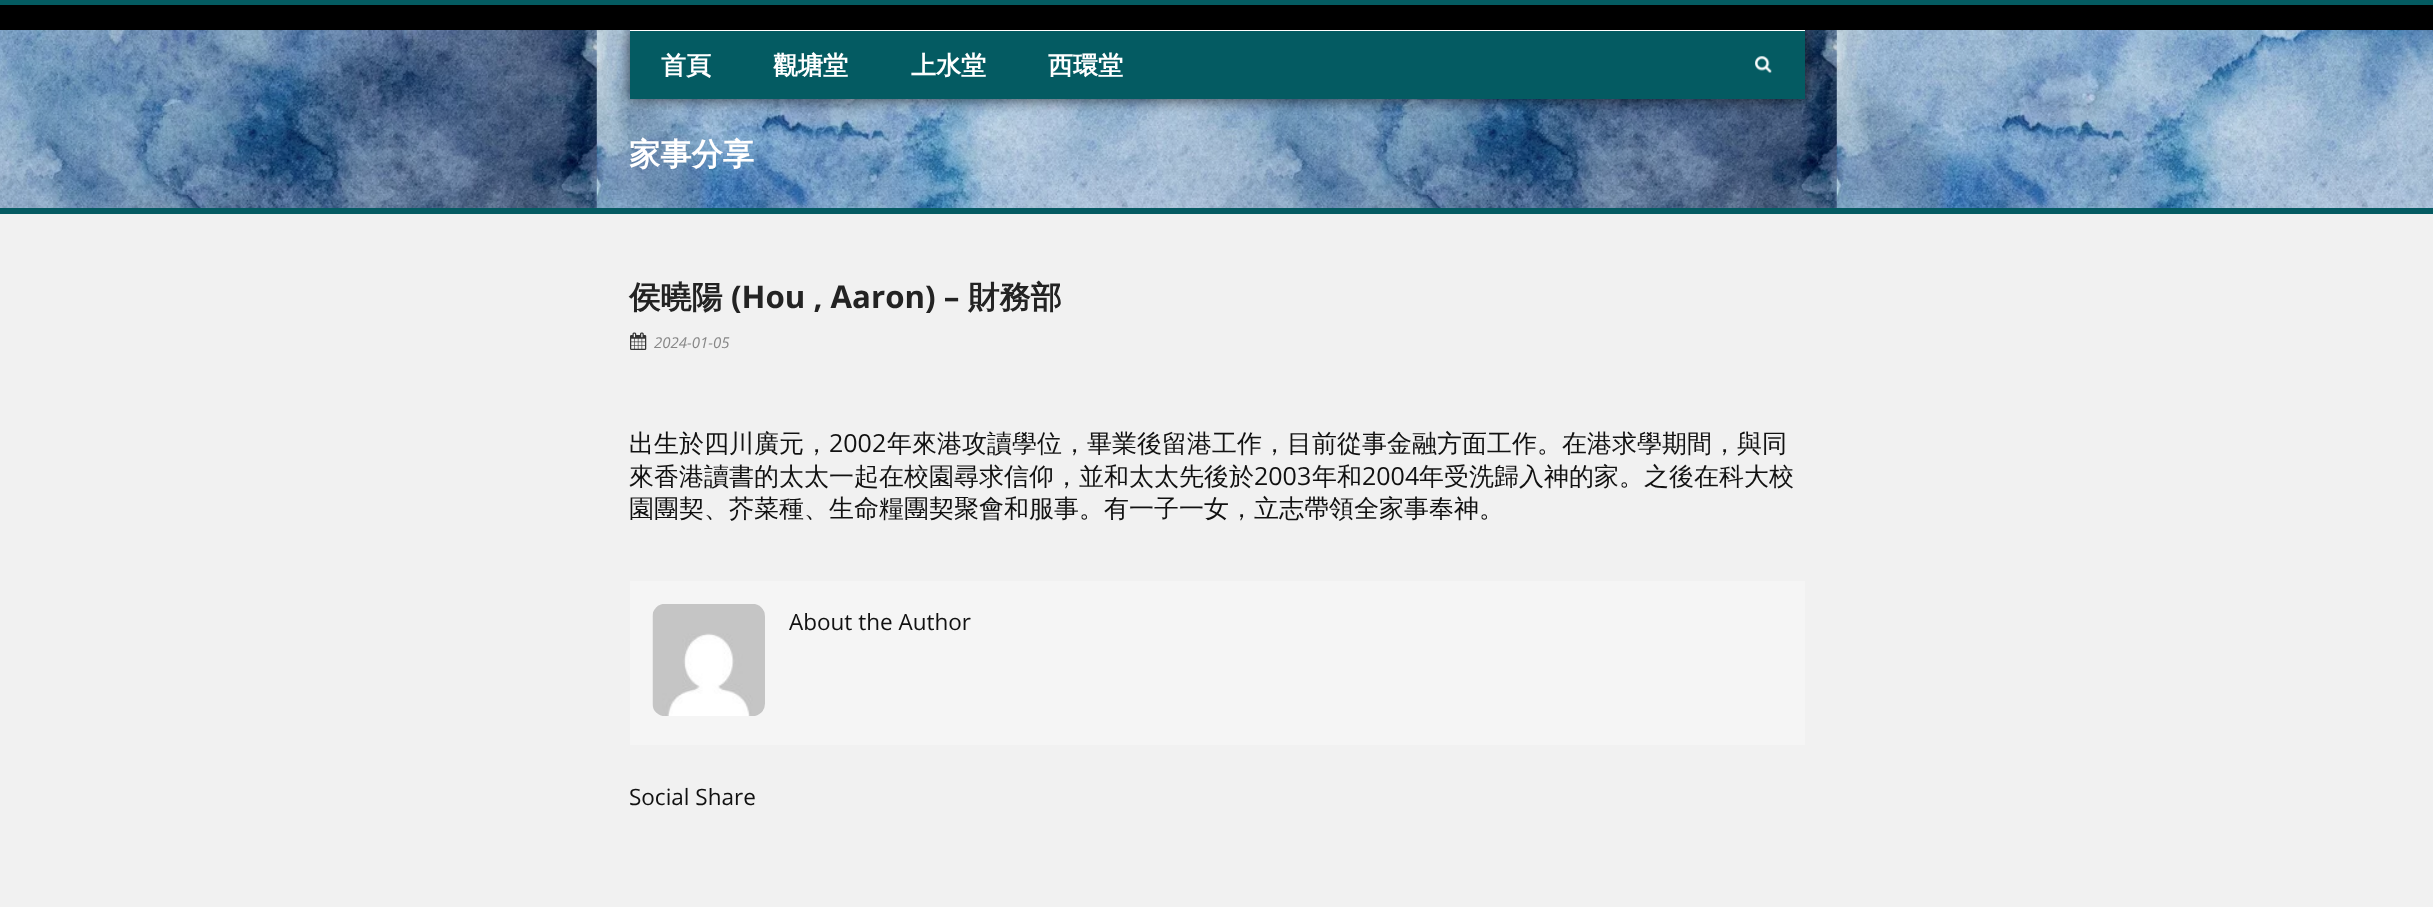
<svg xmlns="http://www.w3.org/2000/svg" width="2433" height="907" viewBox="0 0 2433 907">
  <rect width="100%" height="100%" fill="#f1f1f1"/>
  <image x="0" y="30" width="2433" height="178" href="img/1.png"/>
  <path d="M630 30h1175v69H630z" fill="#000000b3" filter="blur(7.5px)"/>
  <path d="M0 5h2433v25H0z" fill="#000"/>
  <path d="M0 0h2433v5H0z" fill="#045b61"/>
  <path d="M630 31h1175v68H630z" fill="#045b62"/>
  <path d="M630 30h1175v1H630z" fill="#fff"/>
  <image x="1755" y="56" width="17" height="17" href="img/2.png"/>
  <path d="M0 208h2433v6H0z" fill="#045b62"/>
  <image x="630" y="332" width="17" height="18" href="img/3.png"/>
  <path d="M630 581h1175v164H630z" fill="#f5f5f5"/>
  <image x="652" y="604" width="113" height="112" href="img/4.png"/>
  <g font-family="WenQuanYi Zen Hei" font-size="25" font-weight="bold" fill="#fff">
    <text x="661" y="74">首頁</text>
    <text x="773" y="74">觀塘堂</text>
    <text x="911" y="74">上水堂</text>
    <text x="1048" y="74">西環堂</text>
  </g>
  <text x="629" y="165" font-family="WenQuanYi Zen Hei" font-size="31.25" font-weight="bold" fill="#fff">家事分享</text>
  <text x="629" y="308" font-family="WenQuanYi Zen Hei" font-size="31.25" font-weight="bold" fill="#232323">侯曉陽</text>
  <text x="731" y="308" font-family="Open Sans" font-size="31.25" font-weight="bold" fill="#232323">(Hou , Aaron) –</text>
  <text x="968" y="308" font-family="WenQuanYi Zen Hei" font-size="31.25" font-weight="bold" fill="#232323">財務部</text>
  <text x="654" y="348" font-family="Open Sans" font-size="15" font-style="italic" fill="#878787">2024-01-05</text>
  <text x="629" y="452" font-family="WenQuanYi Zen Hei" font-size="25" font-weight="500" fill="#111">出生於四川廣元，</text>
  <text x="829" y="452" font-family="Open Sans" font-size="25" fill="#111">2002</text>
  <g font-family="WenQuanYi Zen Hei" font-size="25" font-weight="500" fill="#111">
    <text x="887" y="452">年來港攻讀學位，畢業後留港工作，目前從事金融方面工作。在港求學期間，與同</text>
    <text x="629" y="485">來香港讀書的太太一起在校園尋求信仰，並和太太先後於</text>
  </g>
  <text x="1254" y="485" font-family="Open Sans" font-size="25" fill="#111">2003</text>
  <text x="1312" y="485" font-family="WenQuanYi Zen Hei" font-size="25" font-weight="500" fill="#111">年和</text>
  <text x="1362" y="485" font-family="Open Sans" font-size="25" fill="#111">2004</text>
  <g font-family="WenQuanYi Zen Hei" font-size="25" font-weight="500" fill="#111">
    <text x="1419" y="485">年受洗歸入神的家。之後在科大校</text>
    <text x="629" y="517">園團契、芥菜種、生命糧團契聚會和服事。有一子一女，立志帶領全家事奉神。</text>
  </g>
  <g font-family="Open Sans" font-size="22.5" fill="#111">
    <text x="789" y="630">About the Author</text>
    <text x="629" y="805">Social Share</text>
  </g>
</svg>
